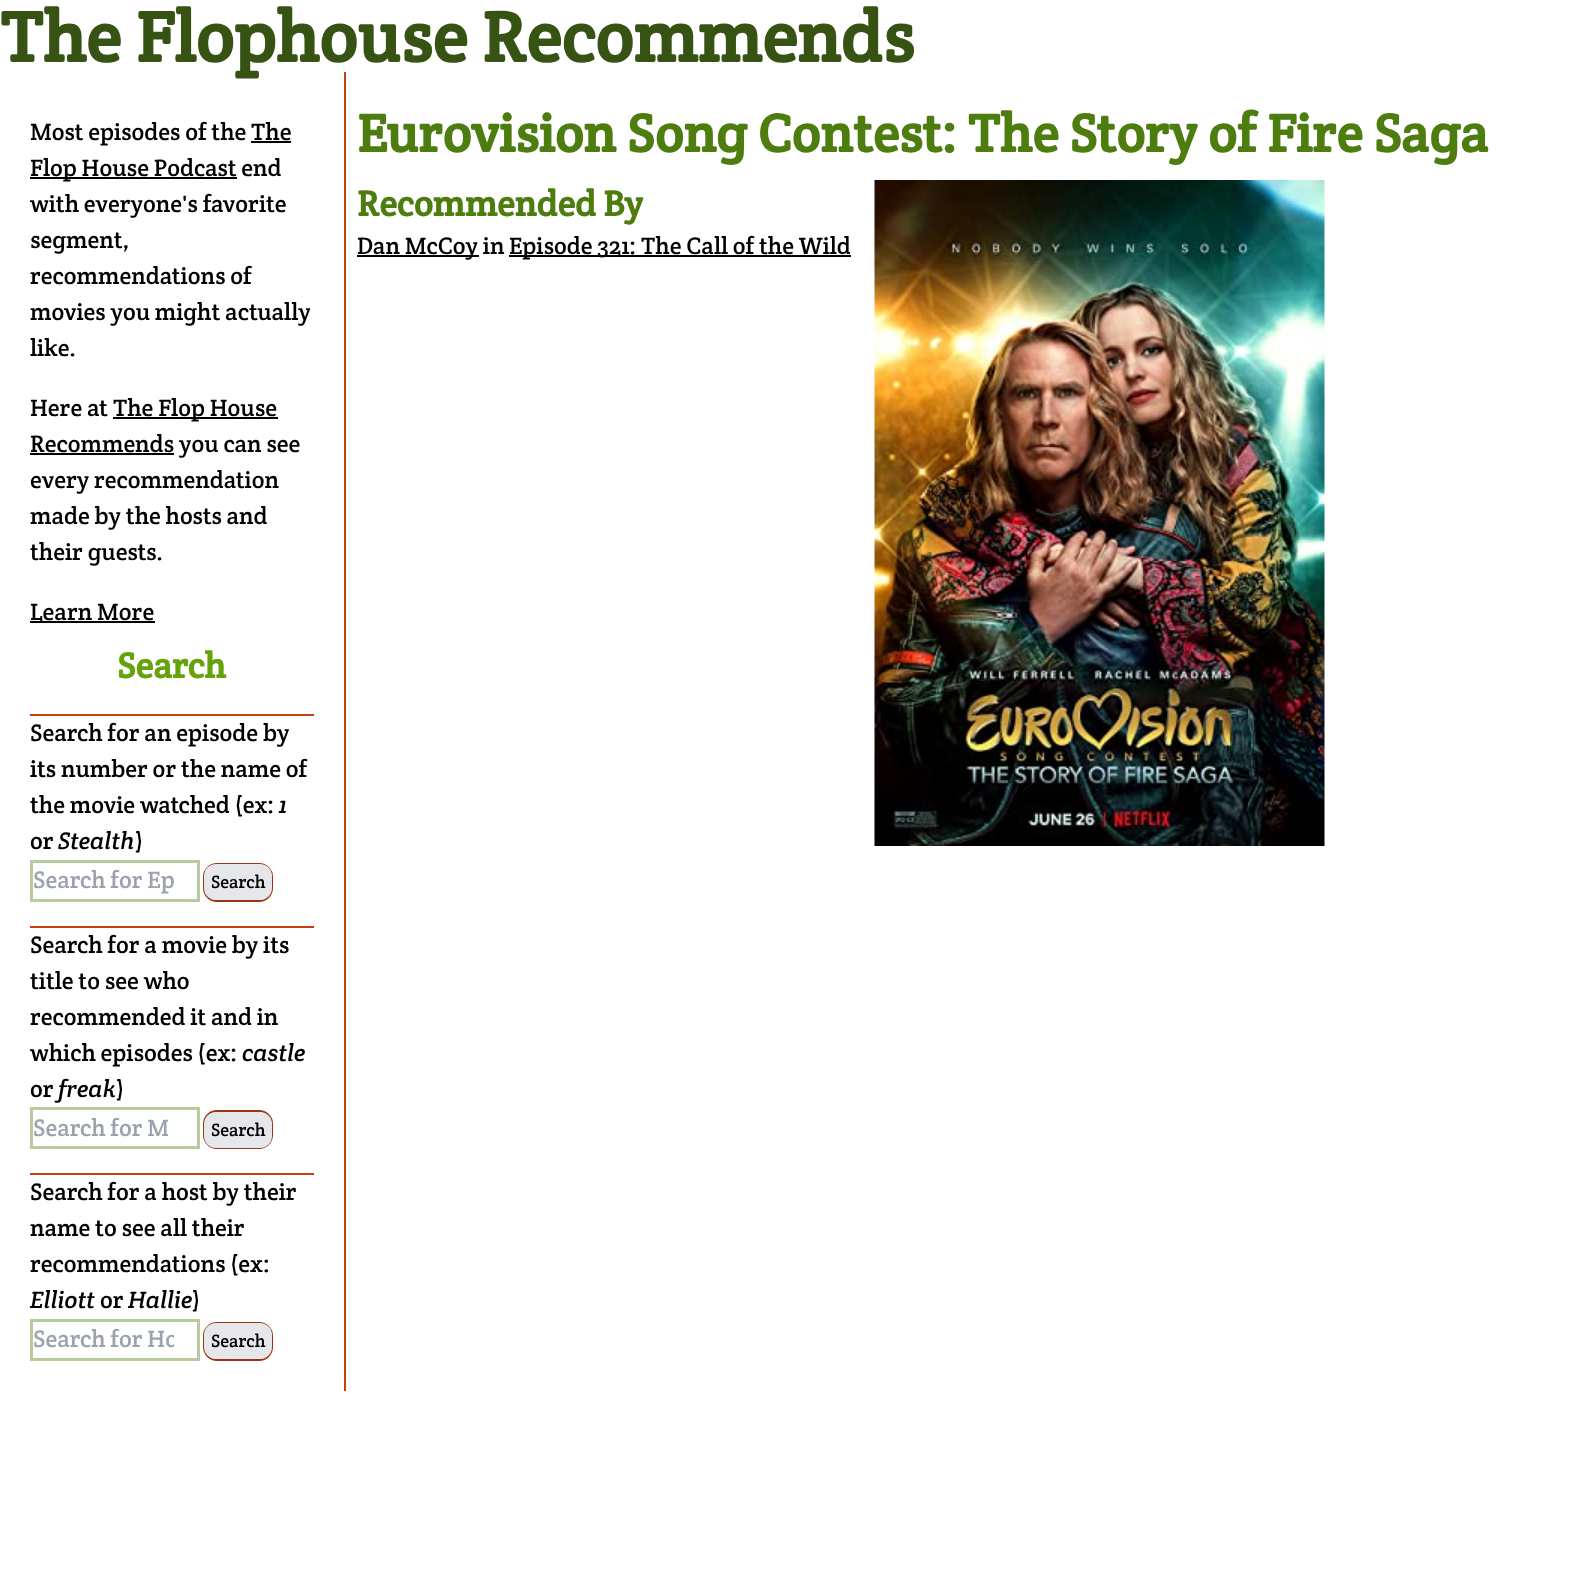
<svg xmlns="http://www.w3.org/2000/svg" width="1572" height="1590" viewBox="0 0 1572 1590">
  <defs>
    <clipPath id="clip1"><path d="M33 1323h141v32H33z"/></clipPath>
  </defs>
  <rect width="100%" height="100%" fill="#fff"/>
  <path d="M251 141h40v2H251z" fill="#000"/>
  <path d="M30 177h207v2H30z" fill="#000"/>
  <path d="M113 417h165v2H113z" fill="#000"/>
  <path d="M30 453h144v2H30z" fill="#000"/>
  <path d="M30 621h125v2H30z" fill="#000"/>
  <path d="M30 714h284v2H30z" fill="#c2410c"/>
  <path d="M31.5 861.5h167v39H31.5z" fill="none" stroke="#b8cb9f" stroke-width="3"/>
  <rect x="204" y="864" width="68" height="37" rx="13" fill="none" stroke="#9a3412" stroke-width="2"/>
  <rect x="204" y="864" width="68" height="36" rx="12" fill="#e5e7eb"/>
  <path d="M30 926h284v2H30z" fill="#c2410c"/>
  <path d="M31.5 1108.5h167v39H31.5z" fill="none" stroke="#b8cb9f" stroke-width="3"/>
  <rect x="204" y="1111" width="68" height="37" rx="13" fill="none" stroke="#9a3412" stroke-width="2"/>
  <rect x="204" y="1112" width="68" height="36" rx="12" fill="#e5e7eb"/>
  <path d="M30 1173h284v2H30z" fill="#c2410c"/>
  <path d="M31.5 1320.5h167v39H31.5z" fill="none" stroke="#b8cb9f" stroke-width="3"/>
  <rect x="204" y="1323" width="68" height="37" rx="13" fill="none" stroke="#9a3412" stroke-width="2"/>
  <rect x="204" y="1323" width="68" height="36" rx="12" fill="#e5e7eb"/>
  <path d="M357 255h122v2H357z" fill="#000"/>
  <path d="M509 255h342v2H509z" fill="#000"/>
  <image x="874" y="180" width="451" height="666" href="img/1.png"/>
  <text x="0" y="62" font-family="Crete Round" font-size="72" font-weight="bold" fill="#365314">The Flophouse Recommends</text>
  <g font-family="Crete Round" font-size="24" fill="#000">
    <text x="30" y="140">Most episodes of the The</text>
    <text x="30" y="176">Flop House Podcast end</text>
    <text x="30" y="212">with everyone's favorite</text>
    <text x="30" y="248">segment,</text>
    <text x="30" y="284">recommendations of</text>
    <text x="30" y="320">movies you might actually</text>
    <text x="30" y="356">like.</text>
    <text x="30" y="416">Here at</text>
    <text x="113" y="416">The Flop House</text>
    <text x="30" y="452">Recommends you can see</text>
    <text x="30" y="488">every recommendation</text>
    <text x="30" y="524">made by the hosts and</text>
    <text x="30" y="560">their guests.</text>
    <text x="30" y="620">Learn More</text>
  </g>
  <text x="117" y="678" font-family="Crete Round" font-size="36" font-weight="bold" fill="#65a30d">Search</text>
  <g font-family="Crete Round" font-size="24" fill="#000">
    <text x="30" y="741">Search for an episode by</text>
    <text x="30" y="777">its number or the name of</text>
    <text x="30" y="813">the movie watched (ex:</text>
  </g>
  <text x="279" y="813" font-family="Crete Round" font-size="24" font-style="italic" fill="#000">1</text>
  <text x="30" y="849" font-family="Crete Round" font-size="24" fill="#000">or</text>
  <text x="58" y="849" font-family="Crete Round" font-size="24" font-style="italic" fill="#000">Stealth</text>
  <text x="135" y="849" font-family="Crete Round" font-size="24" fill="#000">)</text>
  <text x="33" y="888" font-family="Crete Round" font-size="24" fill="#9ca3af">Search for Ep</text>
  <text x="211" y="888" font-family="Crete Round" font-size="18" fill="#000">Search</text>
  <g font-family="Crete Round" font-size="24" fill="#000">
    <text x="30" y="953">Search for a movie by its</text>
    <text x="30" y="989">title to see who</text>
    <text x="30" y="1025">recommended it and in</text>
    <text x="30" y="1061">which episodes (ex:</text>
  </g>
  <text x="242" y="1061" font-family="Crete Round" font-size="24" font-style="italic" fill="#000">castle</text>
  <text x="30" y="1097" font-family="Crete Round" font-size="24" fill="#000">or</text>
  <text x="58" y="1097" font-family="Crete Round" font-size="24" font-style="italic" fill="#000">freak</text>
  <text x="116" y="1097" font-family="Crete Round" font-size="24" fill="#000">)</text>
  <text x="33" y="1136" font-family="Crete Round" font-size="24" fill="#9ca3af">Search for M</text>
  <text x="211" y="1136" font-family="Crete Round" font-size="18" fill="#000">Search</text>
  <g font-family="Crete Round" font-size="24" fill="#000">
    <text x="30" y="1200">Search for a host by their</text>
    <text x="30" y="1236">name to see all their</text>
    <text x="30" y="1272">recommendations (ex:</text>
  </g>
  <text x="30" y="1308" font-family="Crete Round" font-size="24" font-style="italic" fill="#000">Elliott</text>
  <text x="100" y="1308" font-family="Crete Round" font-size="24" fill="#000">or</text>
  <text x="128" y="1308" font-family="Crete Round" font-size="24" font-style="italic" fill="#000">Hallie</text>
  <text x="192" y="1308" font-family="Crete Round" font-size="24" fill="#000">)</text>
  <g clip-path="url(#clip1)">
    <text x="33" y="1347" font-family="Crete Round" font-size="24" fill="#9ca3af">Search for Ho</text>
  </g>
  <text x="211" y="1347" font-family="Crete Round" font-size="18" fill="#000">Search</text>
  <path d="M344 72h2v1319H344z" fill="#c2410c"/>
  <text x="357" y="152" font-family="Crete Round" font-size="54" font-weight="bold" fill="#4d7c0f">Eurovision Song Contest: The Story of Fire Saga</text>
  <text x="357" y="216" font-family="Crete Round" font-size="36" font-weight="bold" fill="#4d7c0f">Recommended By</text>
  <g font-family="Crete Round" font-size="24" fill="#000">
    <text x="357" y="254">Dan McCoy in</text>
    <text x="509" y="254">Episode 321: The Call of the Wild</text>
  </g>
</svg>
